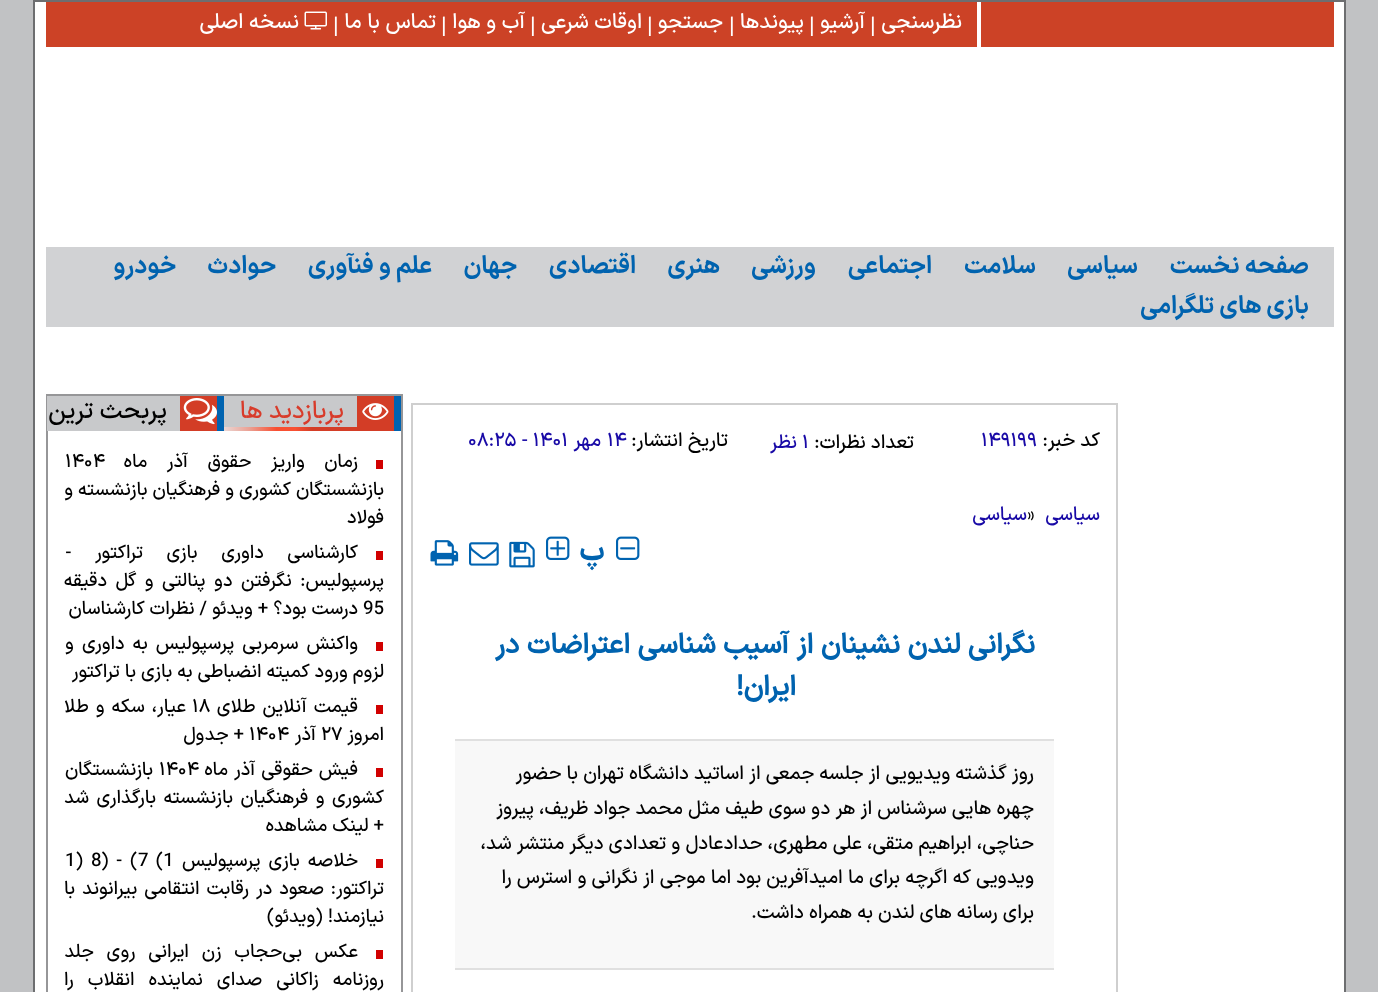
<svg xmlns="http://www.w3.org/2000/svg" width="1378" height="992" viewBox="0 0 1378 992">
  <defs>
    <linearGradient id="g1" gradientUnits="userSpaceOnUse" x1="217" y1="429" x2="387" y2="429"><stop offset="0" stop-color="#8a6e6a"/><stop offset="0" stop-color="#ebe6e6"/><stop offset="0.19" stop-color="#eba194"/><stop offset="0.35" stop-color="#f84f32"/><stop offset="0.37" stop-color="#f85032"/><stop offset="0.46" stop-color="#f85032"/><stop offset="0.56" stop-color="#d43e27"/><stop offset="1" stop-color="#d43e27"/></linearGradient>
  </defs>
  <rect width="100%" height="100%" fill="#c1c2c4"/>
  <path d="M34 1h1311v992H34z" fill="#fff" stroke="#6d6e70" stroke-width="2"/>
  <path d="M46 2h1288v45H46z" fill="#cc4226"/>
  <path d="M977 2h4v45H977z" fill="#fff"/>
  <image x="304" y="11" width="23" height="19" href="img/1.png"/>
  <path d="M46 247h1288v80H46z" fill="#d1d2d4"/>
  <path d="M412 404h705v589H412z" fill="none" stroke="#cfcfcf" stroke-width="2"/>
  <image x="616" y="536" width="24" height="24" href="img/2.png"/>
  <image x="546" y="536" width="24" height="24" href="img/3.png"/>
  <image x="509" y="541" width="26" height="27" href="img/4.png"/>
  <image x="469" y="542" width="30" height="24" href="img/5.png"/>
  <image x="430" y="540" width="29" height="26" href="img/6.png"/>
  <path d="M455 741h599v227H455z" fill="#f8f8f8"/>
  <path d="M455 739h599v2H455z" fill="#e0e0e0"/>
  <path d="M455 968h599v2H455z" fill="#e0e0e0"/>
  <path d="M47 395h355v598H47z" fill="none" stroke="#969698" stroke-width="2"/>
  <path d="M224 396h133v31H224z" fill="#c8c9cb"/>
  <path d="M394 396h7v35H394z" fill="#0063b0"/>
  <path d="M357 396h37v35H357z" fill="#d33d26"/>
  <path d="M224 427h133v4H224z" fill="url(#g1)"/>
  <image x="362" y="403" width="27" height="17" href="img/7.png"/>
  <path d="M47 396h133v35H47z" fill="#c8c9cb"/>
  <path d="M217 396h7v35H217z" fill="#0063b0"/>
  <path d="M180 396h37v35H180z" fill="#d33d26"/>
  <image x="183" y="398" width="34" height="27" href="img/8.png"/>
  <path d="M376 460h7v9H376z" fill="#d10000"/>
  <path d="M376 551h7v9H376z" fill="#d10000"/>
  <path d="M376 642h7v9H376z" fill="#d10000"/>
  <path d="M376 705h7v9H376z" fill="#d10000"/>
  <path d="M376 768h7v9H376z" fill="#d10000"/>
  <path d="M376 859h7v9H376z" fill="#d10000"/>
  <path d="M376 950h7v9H376z" fill="#d10000"/>
  <text x="962" y="28" font-family="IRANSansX" font-size="21" font-weight="500" direction="rtl" fill="#fff">نظرسنجی</text>
  <text x="870" y="33" font-family="IRANSansX" font-size="23" font-weight="500" fill="#fff">|</text>
  <text x="865" y="28" font-family="IRANSansX" font-size="21" font-weight="500" direction="rtl" fill="#fff">آرشیو</text>
  <text x="809" y="33" font-family="IRANSansX" font-size="23" font-weight="500" fill="#fff">|</text>
  <text x="804" y="28" font-family="IRANSansX" font-size="21" font-weight="500" direction="rtl" fill="#fff">پیوندها</text>
  <text x="729" y="33" font-family="IRANSansX" font-size="23" font-weight="500" fill="#fff">|</text>
  <text x="723" y="28" font-family="IRANSansX" font-size="21" font-weight="500" direction="rtl" fill="#fff">جستجو</text>
  <text x="647" y="33" font-family="IRANSansX" font-size="23" font-weight="500" fill="#fff">|</text>
  <text x="642" y="28" font-family="IRANSansX" font-size="21" font-weight="500" direction="rtl" fill="#fff">اوقات شرعی</text>
  <text x="530" y="33" font-family="IRANSansX" font-size="23" font-weight="500" fill="#fff">|</text>
  <text x="525" y="28" font-family="IRANSansX" font-size="21" font-weight="500" direction="rtl" fill="#fff">آب و هوا</text>
  <text x="441" y="33" font-family="IRANSansX" font-size="23" font-weight="500" fill="#fff">|</text>
  <text x="436" y="28" font-family="IRANSansX" font-size="21" font-weight="500" direction="rtl" fill="#fff">تماس با ما</text>
  <text x="333" y="33" font-family="IRANSansX" font-size="23" font-weight="500" fill="#fff">|</text>
  <text x="299" y="28" font-family="IRANSansX" font-size="21" font-weight="500" direction="rtl" fill="#fff">نسخه اصلی</text>
  <g font-family="IRANSansX" font-size="24.5" font-weight="bold" direction="rtl" fill="#0063af">
    <text x="1309" y="273">صفحه نخست</text>
    <text x="1138" y="273">سیاسی</text>
    <text x="1036" y="273">سلامت</text>
    <text x="932" y="273">اجتماعی</text>
    <text x="816" y="273">ورزشی</text>
    <text x="720" y="273">هنری</text>
    <text x="636" y="273">اقتصادى</text>
    <text x="517" y="273">جهان</text>
    <text x="432" y="273">علم و فنآوری</text>
    <text x="276" y="273">حوادث</text>
    <text x="176" y="273">خودرو</text>
    <text x="1309" y="313">بازی های تلگرامی</text>
  </g>
  <text x="1100" y="446" font-family="IRANSansX" font-size="19.25" font-weight="500" direction="rtl" fill="#000">کد خبر:</text>
  <text x="981" y="446" font-family="IRANSansX" font-size="19.25" font-weight="500" fill="#1809a6">۱۴۹۱۹۹</text>
  <text x="914" y="448" font-family="IRANSansX" font-size="19.25" font-weight="500" direction="rtl" fill="#000">تعداد نظرات:</text>
  <text x="802" y="448" font-family="IRANSansX" font-size="19.25" font-weight="500" fill="#1809a6">۱</text>
  <text x="797" y="448" font-family="IRANSansX" font-size="19.25" font-weight="500" direction="rtl" fill="#1809a6">نظر</text>
  <text x="728" y="446" font-family="IRANSansX" font-size="19.25" font-weight="500" direction="rtl" fill="#000">تاریخ انتشار:</text>
  <text x="607" y="446" font-family="IRANSansX" font-size="19.25" font-weight="500" fill="#1809a6">۱۴</text>
  <text x="601" y="446" font-family="IRANSansX" font-size="19.25" font-weight="500" direction="rtl" fill="#1809a6">مهر</text>
  <text x="468" y="446" font-family="IRANSansX" font-size="19.25" font-weight="500" fill="#1809a6">۰۸:۲۵ - ۱۴۰۱</text>
  <text x="1100" y="520" font-family="IRANSansX" font-size="19.25" font-weight="500" direction="rtl" fill="#1809a6">سیاسی</text>
  <text x="1027" y="520" font-family="IRANSansX" font-size="19.25" font-weight="500" fill="#000">»</text>
  <text x="1027" y="520" font-family="IRANSansX" font-size="19.25" font-weight="500" direction="rtl" fill="#1809a6">سیاسی</text>
  <text x="605" y="560" font-family="IRANSansX" font-size="30" font-weight="bold" direction="rtl" fill="#0063af">پ</text>
  <g font-family="'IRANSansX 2'" font-size="28" font-weight="bold" direction="rtl" fill="#0063af">
    <text x="1035" y="653">نگرانی لندن نشینان از آسیب شناسی اعتراضات در</text>
    <text x="796" y="695">ایران!</text>
  </g>
  <g font-family="IRANSansX" font-size="19.25" font-weight="500" direction="rtl" fill="#000">
    <text x="1034" y="779">روز گذشته ویدیویی از جلسه جمعی از اساتید دانشگاه تهران با حضور</text>
    <text x="1034" y="814">چهره هایی سرشناس از هر دو سوی طیف مثل محمد جواد ظریف، پیروز</text>
    <text x="1034" y="849">حناچی، ابراهیم متقی، علی مطهری، حدادعادل و تعدادی دیگر منتشر شد،</text>
    <text x="1034" y="883">ویدویی که اگرچه برای ما امیدآفرین بود اما موجی از نگرانی و استرس را</text>
    <text x="1034" y="918">برای رسانه های لندن به همراه داشت.</text>
  </g>
  <text x="344" y="418" font-family="IRANSansX" font-size="24.5" font-weight="500" direction="rtl" fill="#d83b2a">پربازدید ها</text>
  <text x="167" y="418" font-family="IRANSansX" font-size="24.5" font-weight="500" direction="rtl" fill="#000">پربحث ترین</text>
  <text x="358" y="467" word-spacing="14.5" font-family="IRANSansX" font-size="18.7" font-weight="500" direction="rtl" fill="#000">زمان واریز حقوق آذر ماه</text>
  <text x="65" y="467" font-family="IRANSansX" font-size="18.7" font-weight="500" fill="#000">۱۴۰۴</text>
  <g font-family="IRANSansX" font-size="18.7" font-weight="500" direction="rtl" fill="#000">
    <text x="384" y="495">بازنشستگان کشوری و فرهنگیان بازنشسته و</text>
    <text x="384" y="523">فولاد</text>
    <text x="358" y="558" word-spacing="18.5">کارشناسی داوری بازی تراکتور -</text>
    <text x="384" y="586" word-spacing="3.5">پرسپولیس: نگرفتن دو پنالتی و گل دقیقه</text>
  </g>
  <text x="363" y="614" font-family="IRANSansX" font-size="18.7" font-weight="500" fill="#000">95</text>
  <g font-family="IRANSansX" font-size="18.7" font-weight="500" direction="rtl" fill="#000">
    <text x="358" y="614">درست بود؟ + ویدئو / نظرات کارشناسان</text>
    <text x="358" y="649" word-spacing="3">واکنش سرمربی پرسپولیس به داوری و</text>
    <text x="384" y="677">لزوم ورود کمیته انضباطی به بازی با تراکتور</text>
    <text x="358" y="712" word-spacing="2">قیمت آنلاین طلای</text>
  </g>
  <text x="192" y="712" font-family="IRANSansX" font-size="18.7" font-weight="500" fill="#000">۱۸</text>
  <g font-family="IRANSansX" font-size="18.7" font-weight="500" direction="rtl" fill="#000">
    <text x="186" y="712" word-spacing="2">عیار، سکه و طلا</text>
    <text x="384" y="740">امروز</text>
  </g>
  <text x="321" y="740" font-family="IRANSansX" font-size="18.7" font-weight="500" fill="#000">۲۷</text>
  <text x="316" y="740" font-family="IRANSansX" font-size="18.7" font-weight="500" direction="rtl" fill="#000">آذر</text>
  <text x="249" y="740" font-family="IRANSansX" font-size="18.7" font-weight="500" fill="#000">۱۴۰۴</text>
  <g font-family="IRANSansX" font-size="18.7" font-weight="500" direction="rtl" fill="#000">
    <text x="244" y="740">+ جدول</text>
    <text x="358" y="775" word-spacing="1">فیش حقوقی آذر ماه</text>
  </g>
  <text x="159" y="775" font-family="IRANSansX" font-size="18.7" font-weight="500" fill="#000">۱۴۰۴</text>
  <g font-family="IRANSansX" font-size="18.7" font-weight="500" direction="rtl" fill="#000">
    <text x="153" y="775">بازنشستگان</text>
    <text x="384" y="803" word-spacing="2.5">کشوری و فرهنگیان بازنشسته بارگذاری شد</text>
    <text x="384" y="831">+ لینک مشاهده</text>
    <text x="358" y="866" word-spacing="3">خلاصه بازی پرسپولیس</text>
  </g>
  <g font-family="IRANSansX" font-size="18.7" font-weight="500" fill="#000">
    <text x="156" y="866">(1</text>
    <text x="138" y="866">7</text>
    <text x="101" y="866" word-spacing="3">) - (</text>
    <text x="91" y="866">8</text>
    <text x="65" y="866">1)</text>
  </g>
  <g font-family="IRANSansX" font-size="18.7" font-weight="500" direction="rtl" fill="#000">
    <text x="384" y="894" word-spacing="2">تراکتور: صعود در رقابت انتقامی بیرانوند با</text>
    <text x="384" y="922">نیازمند! (ویدئو)</text>
    <text x="358" y="957" word-spacing="7.75">عکس بی‌حجاب زن ایرانی روی جلد</text>
    <text x="384" y="985" word-spacing="9">روزنامه زاکانی صدای نماینده انقلاب را</text>
  </g>
</svg>
